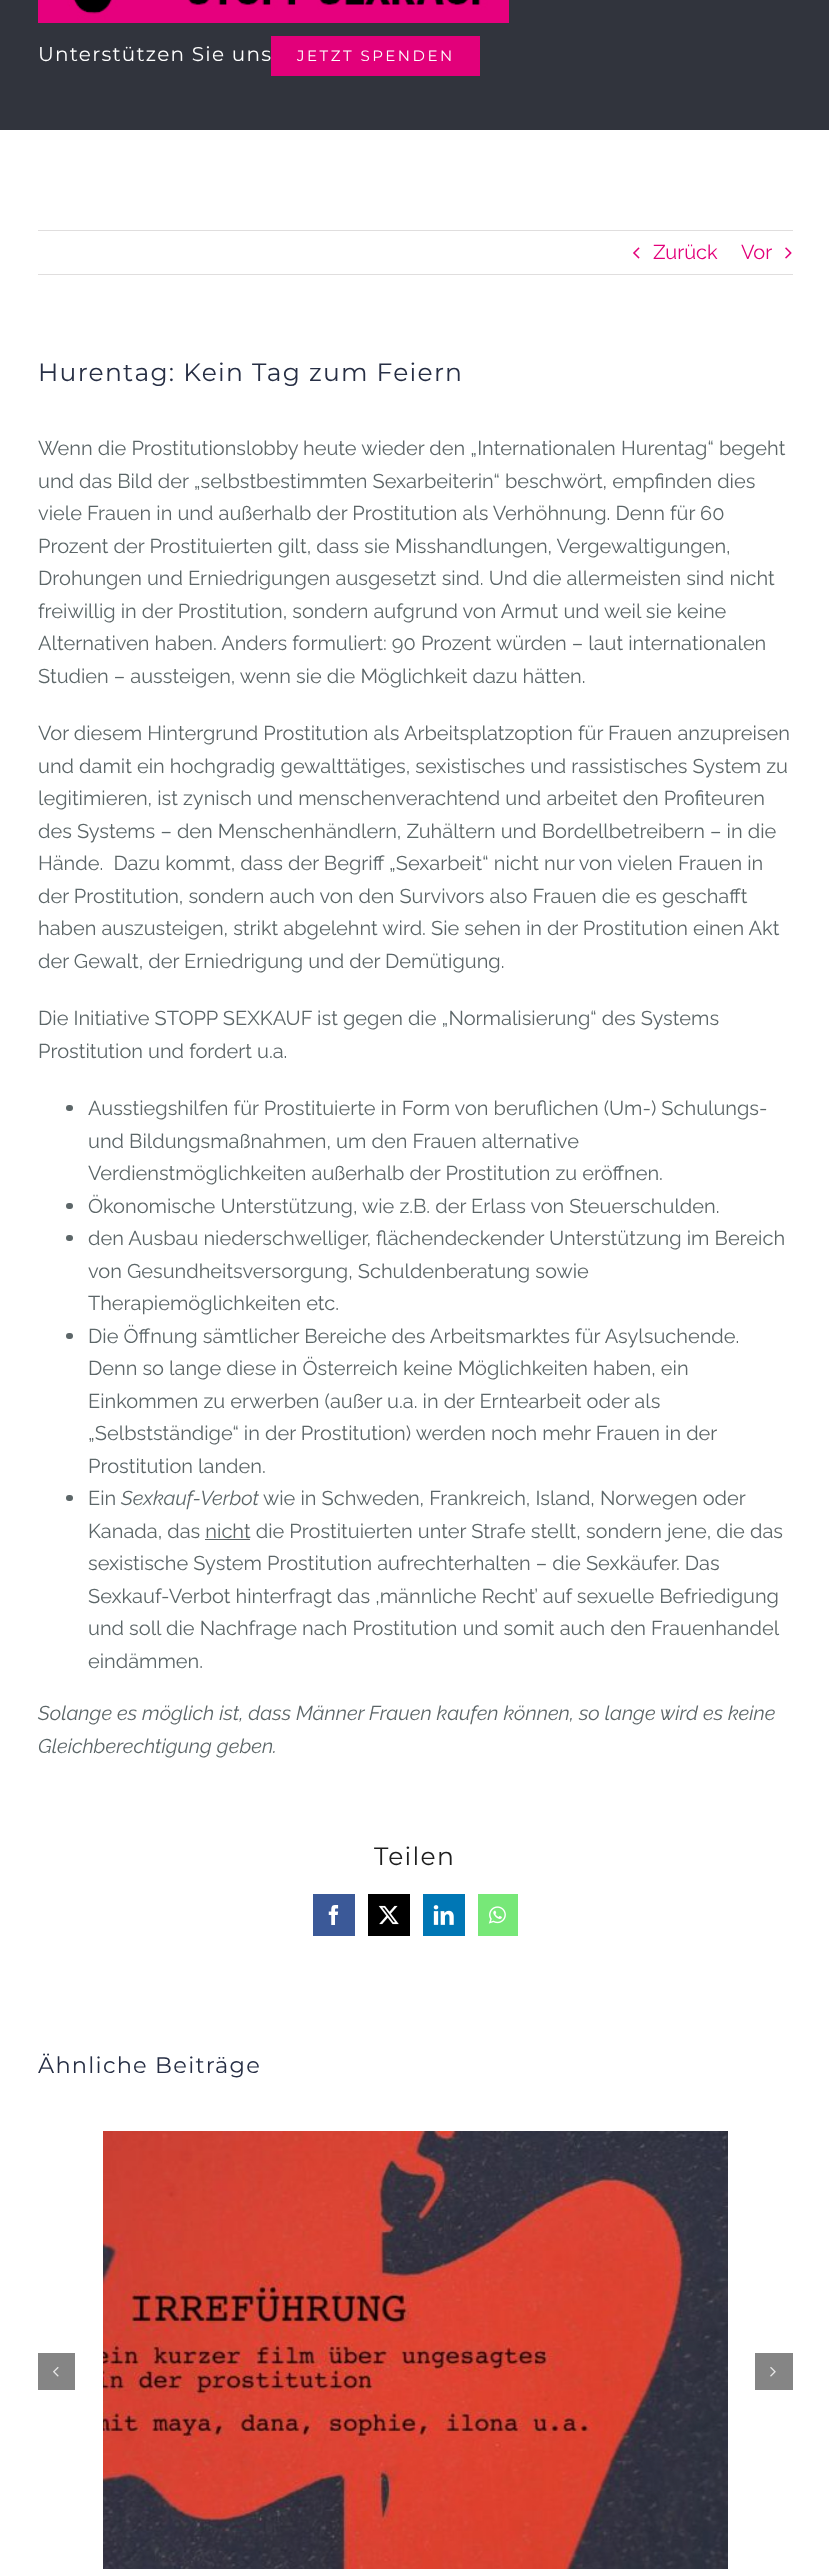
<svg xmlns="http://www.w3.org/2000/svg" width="829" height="2569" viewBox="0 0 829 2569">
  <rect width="100%" height="100%" fill="#fff"/>
  <path d="M0 0h829v130H0z" fill="#31343d"/>
  <image x="38" y="0" width="471" height="23" href="img/1.png"/>
  <path d="M271 36h209v40H271z" fill="#e2007a"/>
  <path d="M38 230h755v1H38z" fill="#e0dede"/>
  <path d="M38 274h755v1H38z" fill="#e0dede"/>
  <image x="633" y="247" width="7" height="12" href="img/2.png"/>
  <image x="785" y="247" width="7" height="12" href="img/3.png"/>
  <rect x="66" y="1105" width="7" height="6" rx="3" fill="#5c6668"/>
  <rect x="66" y="1203" width="7" height="6" rx="3" fill="#5c6668"/>
  <rect x="66" y="1235" width="7" height="6" rx="3" fill="#5c6668"/>
  <rect x="66" y="1333" width="7" height="6" rx="3" fill="#5c6668"/>
  <rect x="66" y="1495" width="7" height="6" rx="3" fill="#5c6668"/>
  <path d="M205 1539h45v1H205z" fill="#5c6668"/>
  <path d="M313 1894h42v42H313z" fill="#3b5998"/>
  <image x="328" y="1905" width="11" height="20" href="img/4.png"/>
  <path d="M368 1894h42v42H368z" fill="#000"/>
  <image x="378" y="1905" width="21" height="20" href="img/5.png"/>
  <path d="M423 1894h42v42H423z" fill="#0077b5"/>
  <image x="433" y="1905" width="21" height="20" href="img/6.png"/>
  <path d="M478 1894h40v42H478z" fill="#77e878"/>
  <image x="488" y="1906" width="18" height="18" href="img/7.png"/>
  <path d="M38 2353h37v37H38z" fill="#858585"/>
  <image x="53" y="2366" width="6" height="11" href="img/8.png"/>
  <image x="103" y="2131" width="625" height="438" href="img/9.png"/>
  <path d="M755 2353h38v37H755z" fill="#858585"/>
  <image x="770" y="2367" width="6" height="10" href="img/10.png"/>
  <text x="38" y="61" font-family="Montserrat" font-size="20" letter-spacing="1.25" fill="#fff">Unterstützen Sie uns</text>
  <text x="297" y="61" font-family="Montserrat" font-size="15" letter-spacing="2.5" fill="#fff">JETZT SPENDEN</text>
  <g font-family="Raleway" font-size="20" fill="#e2007a">
    <text x="653" y="259">Zurück</text>
    <text x="741" y="259">Vor</text>
  </g>
  <text x="38" y="381" font-family="Montserrat" font-size="25" letter-spacing="1.25" fill="#262e44">Hurentag: Kein Tag zum Feiern</text>
  <g font-family="Raleway" font-size="20" fill="#5c6668">
    <text x="38" y="455">Wenn die Prostitutionslobby heute wieder den „Internationalen Hurentag“ begeht</text>
    <text x="38" y="488">und das Bild der „selbstbestimmten Sexarbeiterin“ beschwört, empfinden dies</text>
    <text x="38" y="520">viele Frauen in und außerhalb der Prostitution als Verhöhnung. Denn für 60</text>
    <text x="38" y="553">Prozent der Prostituierten gilt, dass sie Misshandlungen, Vergewaltigungen,</text>
    <text x="38" y="585">Drohungen und Erniedrigungen ausgesetzt sind. Und die allermeisten sind nicht</text>
    <text x="38" y="618">freiwillig in der Prostitution, sondern aufgrund von Armut und weil sie keine</text>
    <text x="38" y="650">Alternativen haben. Anders formuliert: 90 Prozent würden – laut internationalen</text>
    <text x="38" y="683">Studien – aussteigen, wenn sie die Möglichkeit dazu hätten.</text>
    <text x="38" y="740">Vor diesem Hintergrund Prostitution als Arbeitsplatzoption für Frauen anzupreisen</text>
    <text x="38" y="773">und damit ein hochgradig gewalttätiges, sexistisches und rassistisches System zu</text>
    <text x="38" y="805">legitimieren, ist zynisch und menschenverachtend und arbeitet den Profiteuren</text>
    <text x="38" y="838">des Systems – den Menschenhändlern, Zuhältern und Bordellbetreibern – in die</text>
    <text x="38" y="870" xml:space="preserve">Hände.  Dazu kommt, dass der Begriff „Sexarbeit“ nicht nur von vielen Frauen in</text>
    <text x="38" y="903">der Prostitution, sondern auch von den Survivors also Frauen die es geschafft</text>
    <text x="38" y="935">haben auszusteigen, strikt abgelehnt wird. Sie sehen in der Prostitution einen Akt</text>
    <text x="38" y="968">der Gewalt, der Erniedrigung und der Demütigung.</text>
    <text x="38" y="1025">Die Initiative STOPP SEXKAUF ist gegen die „Normalisierung“ des Systems</text>
    <text x="38" y="1058">Prostitution und fordert u.a.</text>
    <text x="88" y="1115">Ausstiegshilfen für Prostituierte in Form von beruflichen (Um-) Schulungs-</text>
    <text x="88" y="1148">und Bildungsmaßnahmen, um den Frauen alternative</text>
    <text x="88" y="1180">Verdienstmöglichkeiten außerhalb der Prostitution zu eröffnen.</text>
    <text x="88" y="1213">Ökonomische Unterstützung, wie z.B. der Erlass von Steuerschulden.</text>
    <text x="88" y="1245">den Ausbau niederschwelliger, flächendeckender Unterstützung im Bereich</text>
    <text x="88" y="1278">von Gesundheitsversorgung, Schuldenberatung sowie</text>
    <text x="88" y="1310">Therapiemöglichkeiten etc.</text>
    <text x="88" y="1343">Die Öffnung sämtlicher Bereiche des Arbeitsmarktes für Asylsuchende.</text>
    <text x="88" y="1375">Denn so lange diese in Österreich keine Möglichkeiten haben, ein</text>
    <text x="88" y="1408">Einkommen zu erwerben (außer u.a. in der Erntearbeit oder als</text>
    <text x="88" y="1440">„Selbstständige“ in der Prostitution) werden noch mehr Frauen in der</text>
    <text x="88" y="1473">Prostitution landen.</text>
    <text x="88" y="1505">Ein</text>
  </g>
  <text x="121" y="1505" font-family="Raleway" font-size="20" font-style="italic" fill="#5c6668">Sexkauf-Verbot</text>
  <g font-family="Raleway" font-size="20" fill="#5c6668">
    <text x="263" y="1505">wie in Schweden, Frankreich, Island, Norwegen oder</text>
    <text x="88" y="1538">Kanada, das nicht die Prostituierten unter Strafe stellt, sondern jene, die das</text>
    <text x="88" y="1570">sexistische System Prostitution aufrechterhalten – die Sexkäufer. Das</text>
    <text x="88" y="1603">Sexkauf-Verbot hinterfragt das ‚männliche Recht’ auf sexuelle Befriedigung</text>
    <text x="88" y="1635">und soll die Nachfrage nach Prostitution und somit auch den Frauenhandel</text>
    <text x="88" y="1668">eindämmen.</text>
  </g>
  <g font-family="Raleway" font-size="20" font-style="italic" fill="#5c6668">
    <text x="38" y="1720">Solange es möglich ist, dass Männer Frauen kaufen können, so lange wird es keine</text>
    <text x="38" y="1753">Gleichberechtigung geben.</text>
  </g>
  <text x="374" y="1865" font-family="Montserrat" font-size="25" letter-spacing="1.25" fill="#1e1e1e">Teilen</text>
  <text x="38" y="2073" font-family="Montserrat" font-size="22.5" letter-spacing="1.25" fill="#262e44">Ähnliche Beiträge</text>
</svg>
